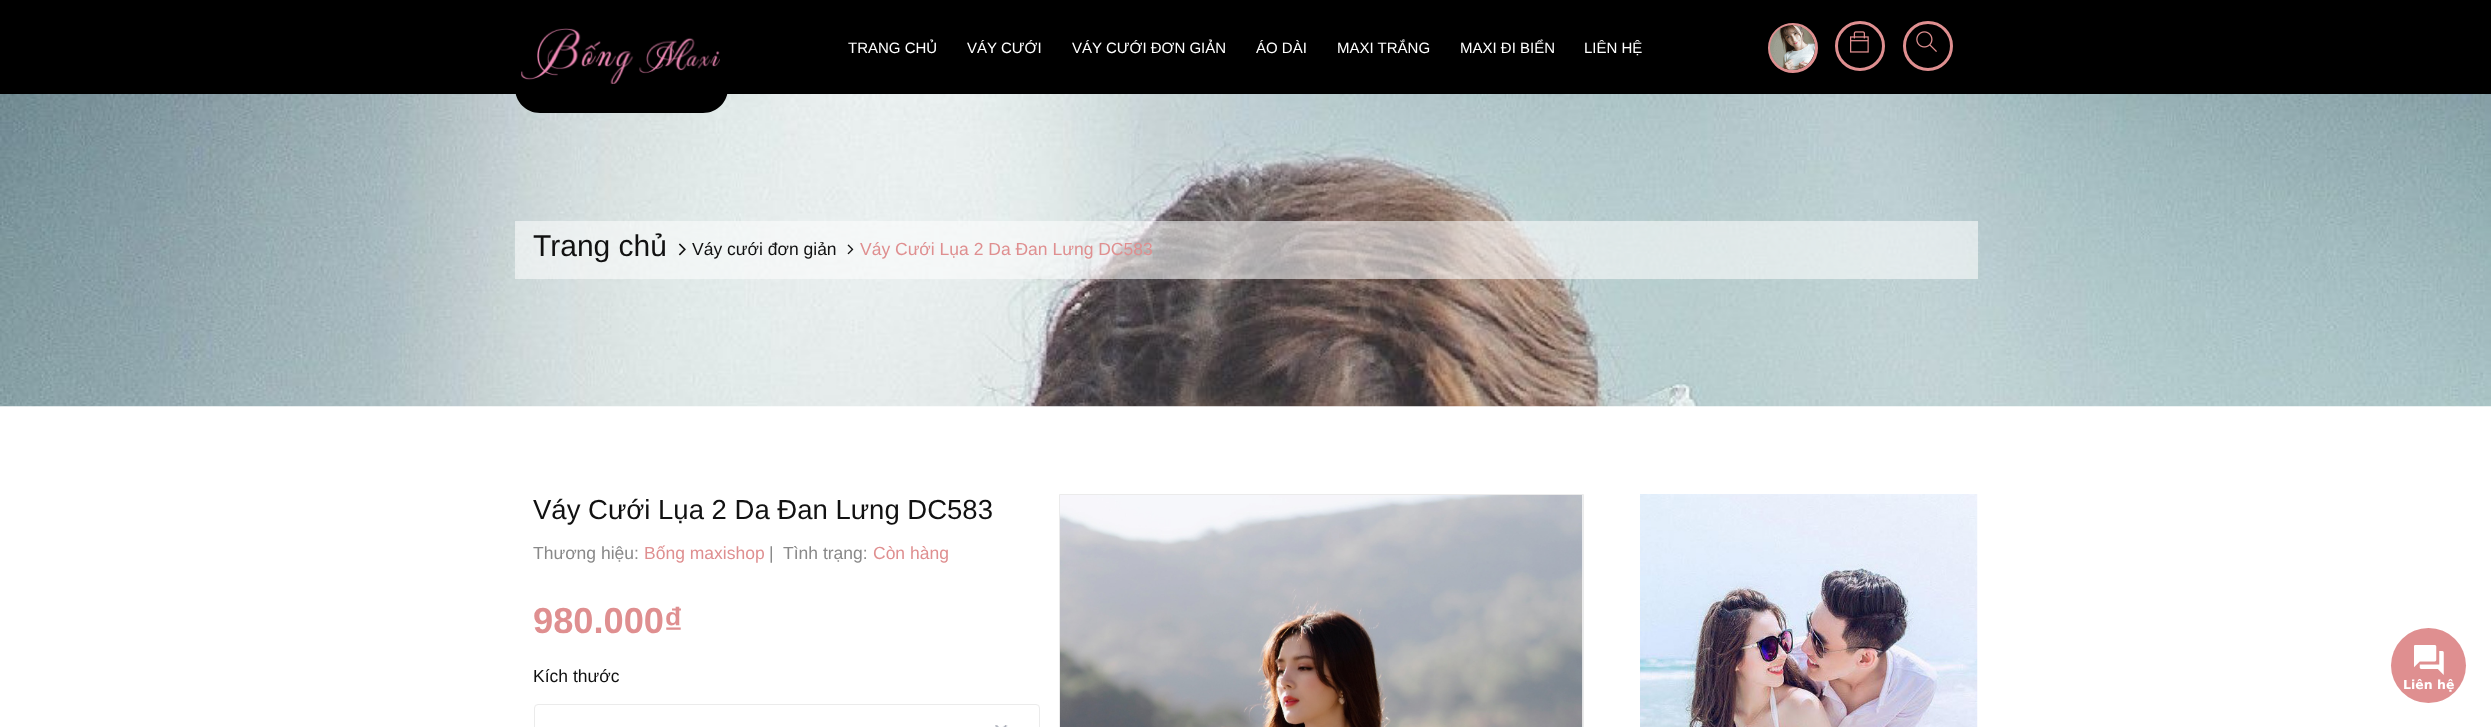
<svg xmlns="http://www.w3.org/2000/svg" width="2491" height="727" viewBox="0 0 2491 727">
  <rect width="100%" height="100%" fill="#fff"/>
  <path d="M0 0h2491v94H0z" fill="#000"/>
  <image x="0" y="94" width="2491" height="313" href="img/5.png"/>
  <path d="M515 0H728V88C728 102 717 113 703 113H540C526 113 515 102 515 88Z" fill="#000"/>
  <image x="521" y="28" width="199" height="56" href="img/1.png"/>
  <circle cx="1793" cy="48" r="23.5" fill="none" stroke="#df8f90" stroke-width="3"/>
  <image x="1770" y="25" width="45" height="45" href="img/2.png"/>
  <circle cx="1860" cy="46" r="23.5" fill="none" stroke="#df8f90" stroke-width="3"/>
  <image x="1850" y="31" width="19" height="22" href="img/3.png"/>
  <circle cx="1928" cy="46" r="23.5" fill="none" stroke="#df8f90" stroke-width="3"/>
  <image x="1916" y="31" width="21" height="21" href="img/4.png"/>
  <path d="M515 221h1463v58H515z" fill="#fefefe91"/>
  <image x="678" y="243" width="8" height="13" href="img/6.png"/>
  <image x="847" y="244" width="7" height="11" href="img/7.png"/>
  <image x="995" y="725" width="13" height="2" href="img/8.png"/>
  <rect x="534.5" y="704.5" width="505" height="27" rx="3.5" fill="none" stroke="#ebebeb"/>
  <path d="M1059.5 494.5h524v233H1059.5z" fill="none" stroke="#ebebeb"/>
  <image x="1060" y="495" width="523" height="232" href="img/9.png"/>
  <image x="1640" y="494" width="338" height="233" href="img/10.png"/>
  <circle cx="2428.5" cy="665.5" r="37.5" fill="#df8f90"/>
  <image x="2414" y="645" width="30" height="30" href="img/11.png"/>
  <g font-family="Liberation Sans" font-size="15" fill="#fff">
    <text x="848" y="53">TRANG CHỦ</text>
    <text x="967" y="53">VÁY CƯỚI</text>
    <text x="1072" y="53">VÁY CƯỚI ĐƠN GIẢN</text>
    <text x="1256" y="53">ÁO DÀI</text>
    <text x="1337" y="53">MAXI TRẮNG</text>
    <text x="1460" y="53">MAXI ĐI BIỂN</text>
    <text x="1584" y="53">LIÊN HỆ</text>
  </g>
  <text x="533" y="256" font-family="Liberation Sans" font-size="30" fill="#111">Trang chủ</text>
  <text x="692" y="255" font-family="Liberation Sans" font-size="17.5" fill="#111">Váy cưới đơn giản</text>
  <text x="860" y="255" font-family="Liberation Sans" font-size="17.5" fill="#df8f90">Váy Cưới Lụa 2 Da Đan Lưng DC583</text>
  <text x="533" y="519" font-family="Liberation Sans" font-size="27.5" fill="#111">Váy Cưới Lụa 2 Da Đan Lưng DC583</text>
  <text x="533" y="559" font-family="Liberation Sans" font-size="17.5" fill="#898989">Thương hiệu:</text>
  <text x="644" y="559" font-family="Liberation Sans" font-size="17.5" fill="#df8f90">Bống maxishop</text>
  <g font-family="Liberation Sans" font-size="17.5" fill="#898989">
    <text x="769" y="559">|</text>
    <text x="783" y="559">Tình trạng:</text>
  </g>
  <text x="873" y="559" font-family="Liberation Sans" font-size="17.5" fill="#df8f90">Còn hàng</text>
  <text x="533" y="633" font-family="Liberation Sans" font-size="36.25" font-weight="bold" fill="#df8f90">980.000₫</text>
  <text x="533" y="682" font-family="Liberation Sans" font-size="17.5" fill="#111">Kích thước</text>
  <text x="2403" y="689" font-family="DejaVu Sans" font-size="12.5" font-weight="bold" fill="#fff">Liên hệ</text>
</svg>
